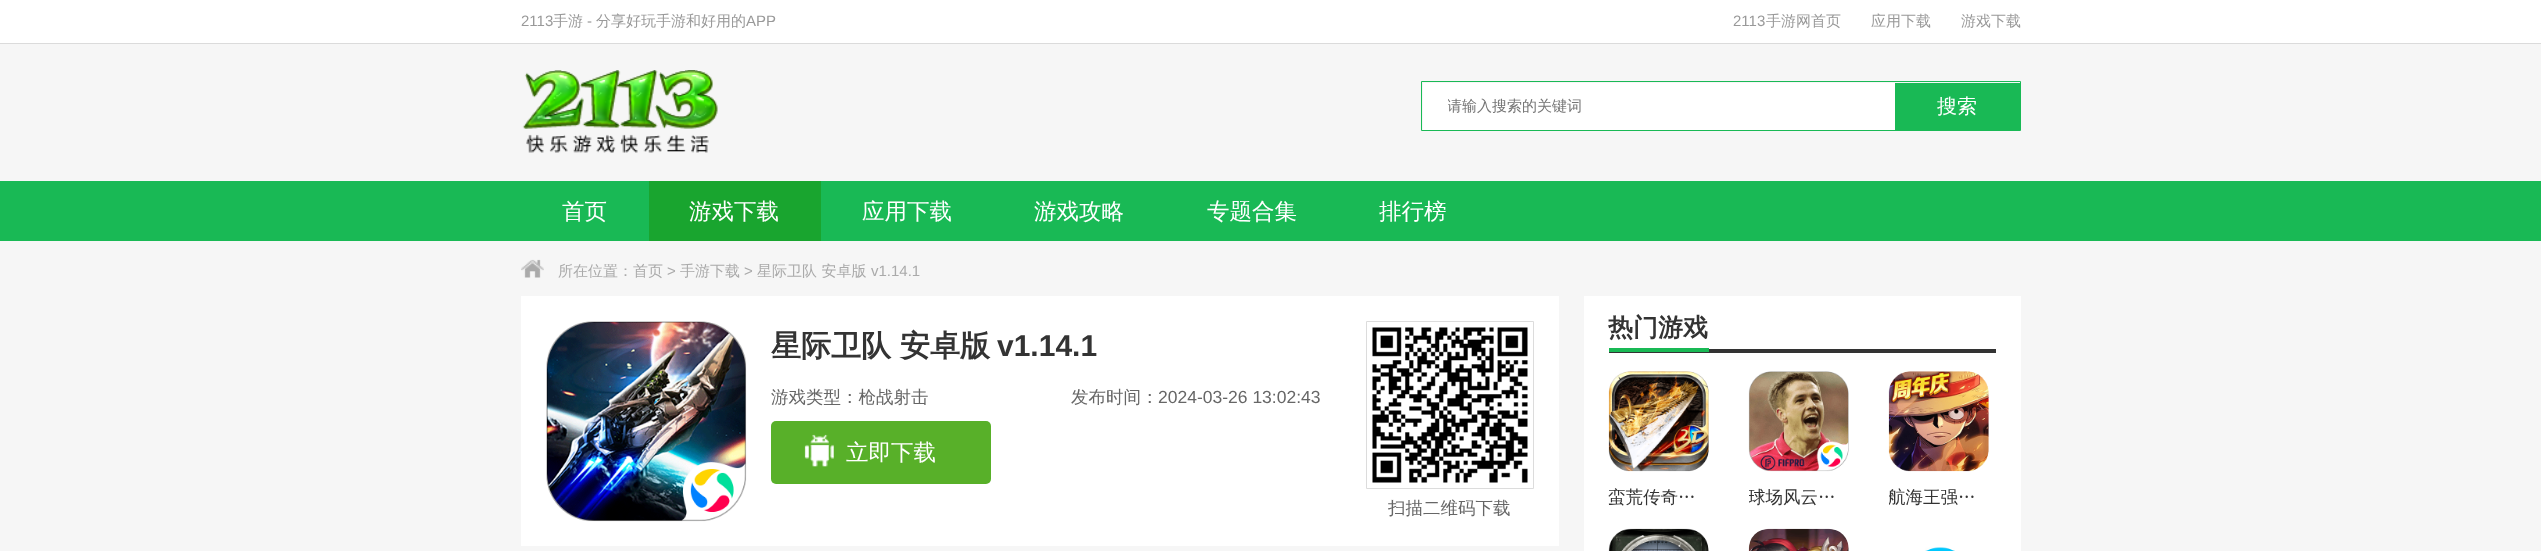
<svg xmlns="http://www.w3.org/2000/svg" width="2541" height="551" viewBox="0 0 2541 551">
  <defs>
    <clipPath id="clip1"><path d="M1448 96h422v22H1448z"/></clipPath>
    <clipPath id="clip2"><path d="M1749 484h100v26H1749z"/></clipPath>
    <clipPath id="clip3"><path d="M1889 484h100v26H1889z"/></clipPath>
  </defs>
  <rect width="100%" height="100%" fill="#f6f6f6"/>
  <path d="M0 0h2541v43H0z" fill="#fff"/>
  <path d="M0 43h2541v1H0z" fill="#dbdbdb"/>
  <image x="522" y="70" width="196" height="83" href="img/1.png"/>
  <path d="M1421.5 81.5h599v49H1421.5z" fill="none" stroke="#19b955"/>
  <path d="M1423 83h472v47H1423z" fill="#fff"/>
  <path d="M1895 83h125v47H1895z" fill="#19b955"/>
  <path d="M0 181h2541v60H0z" fill="#19b955"/>
  <path d="M649 181h172v60H649z" fill="#19a52f"/>
  <image x="521" y="259" width="23" height="19" href="img/2.png"/>
  <path d="M521 296h1038v250H521z" fill="#fff"/>
  <image x="546" y="321" width="201" height="201" href="img/3.png"/>
  <rect x="771" y="421" width="220" height="63" rx="5" fill="#58b029"/>
  <image x="804" y="434" width="30" height="33" href="img/4.png"/>
  <path d="M1366.5 321.5h167v167H1366.5z" fill="none" stroke="#dcdcdc"/>
  <image x="1372" y="327" width="156" height="156" href="img/5.png"/>
  <path d="M1584 296h437v255H1584z" fill="#fff"/>
  <path d="M1609 349h387v4H1609z" fill="#333"/>
  <path d="M1609 348h100v4H1609z" fill="#19b955"/>
  <image x="1608" y="371" width="101" height="101" href="img/6.png"/>
  <image x="1748" y="371" width="101" height="101" href="img/7.png"/>
  <image x="1888" y="371" width="101" height="101" href="img/8.png"/>
  <image x="1608" y="528" width="101" height="23" href="img/9.png"/>
  <image x="1748" y="528" width="101" height="23" href="img/10.png"/>
  <image x="1925" y="547" width="30" height="4" href="img/11.png"/>
  <text x="521" y="26" font-family="Liberation Sans" font-size="15" fill="#999">2113</text>
  <text x="553" y="26" font-family="WenQuanYi Zen Hei" font-size="15" font-weight="500" fill="#999">手游</text>
  <text x="587" y="26" font-family="Liberation Sans" font-size="15" fill="#999">-</text>
  <text x="596" y="26" font-family="WenQuanYi Zen Hei" font-size="15" font-weight="500" fill="#999">分享好玩手游和好用的</text>
  <g font-family="Liberation Sans" font-size="15" fill="#999">
    <text x="746" y="26">APP</text>
    <text x="1733" y="26">2113</text>
  </g>
  <g font-family="WenQuanYi Zen Hei" font-size="15" font-weight="500" fill="#999">
    <text x="1766" y="26">手游网首页</text>
    <text x="1871" y="26">应用下载</text>
    <text x="1961" y="26">游戏下载</text>
  </g>
  <g clip-path="url(#clip1)">
    <text x="1447" y="111" font-family="WenQuanYi Zen Hei" font-size="15" font-weight="500" fill="#757575">请输入搜索的关键词</text>
  </g>
  <text x="1937" y="113" font-family="WenQuanYi Zen Hei" font-size="20" font-weight="500" fill="#fff">搜索</text>
  <g font-family="WenQuanYi Zen Hei" font-size="22.5" font-weight="500" fill="#fff">
    <text x="562" y="219">首页</text>
    <text x="689" y="219">游戏下载</text>
    <text x="862" y="219">应用下载</text>
    <text x="1034" y="219">游戏攻略</text>
    <text x="1207" y="219">专题合集</text>
    <text x="1379" y="219">排行榜</text>
  </g>
  <text x="558" y="276" font-family="WenQuanYi Zen Hei" font-size="15" font-weight="500" fill="#aaa">所在位置：首页</text>
  <text x="667" y="276" font-family="Liberation Sans" font-size="15" fill="#aaa">&gt;</text>
  <text x="680" y="276" font-family="WenQuanYi Zen Hei" font-size="15" font-weight="500" fill="#aaa">手游下载</text>
  <text x="744" y="276" font-family="Liberation Sans" font-size="15" fill="#aaa">&gt;</text>
  <text x="757" y="276" font-family="WenQuanYi Zen Hei" font-size="15" font-weight="500" fill="#aaa">星际卫队 安卓版</text>
  <text x="871" y="276" font-family="Liberation Sans" font-size="15" fill="#aaa">v1.14.1</text>
  <text x="771" y="356" font-family="WenQuanYi Zen Hei" font-size="30" font-weight="bold" fill="#333">星际卫队 安卓版</text>
  <text x="997" y="356" font-family="Liberation Sans" font-size="30" font-weight="bold" fill="#333">v1.14.1</text>
  <g font-family="WenQuanYi Zen Hei" font-size="17.5" font-weight="500" fill="#666">
    <text x="771" y="403">游戏类型：枪战射击</text>
    <text x="1071" y="403">发布时间：</text>
  </g>
  <text x="1158" y="403" font-family="Liberation Sans" font-size="17.5" fill="#666">2024-03-26 13:02:43</text>
  <text x="846" y="460" font-family="WenQuanYi Zen Hei" font-size="22.5" font-weight="500" fill="#fff">立即下载</text>
  <text x="1388" y="514" font-family="WenQuanYi Zen Hei" font-size="17.5" font-weight="500" fill="#666">扫描二维码下载</text>
  <text x="1608" y="336" font-family="WenQuanYi Zen Hei" font-size="25" font-weight="bold" fill="#333">热门游戏</text>
  <text x="1608" y="503" font-family="WenQuanYi Zen Hei" font-size="17.5" font-weight="500" fill="#333">蛮荒传奇…</text>
  <g clip-path="url(#clip2)">
    <text x="1748" y="503" font-family="WenQuanYi Zen Hei" font-size="17.5" font-weight="500" fill="#333">球场风云…</text>
  </g>
  <g clip-path="url(#clip3)">
    <text x="1888" y="503" font-family="WenQuanYi Zen Hei" font-size="17.5" font-weight="500" fill="#333">航海王强…</text>
  </g>
</svg>
